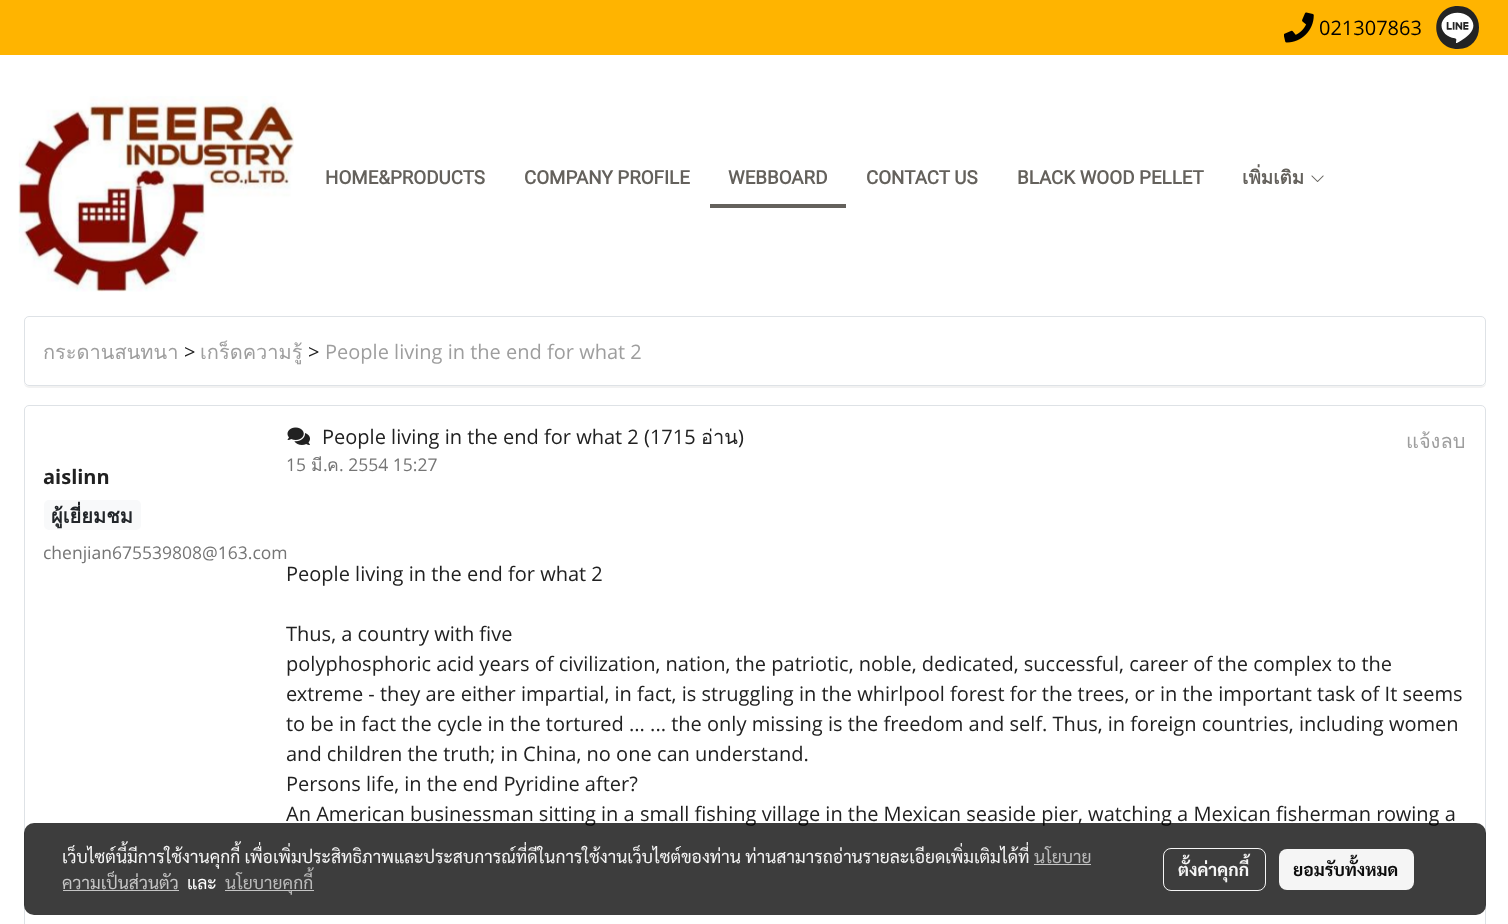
<svg xmlns="http://www.w3.org/2000/svg" width="1508" height="924" viewBox="0 0 1508 924">
  <defs>
    <clipPath id="clip1"><path d="M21 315H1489V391H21ZM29 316H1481C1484 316 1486 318 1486 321V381C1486 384 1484 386 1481 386H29C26 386 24 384 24 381V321C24 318 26 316 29 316Z" clip-rule="evenodd"/></clipPath>
  </defs>
  <rect width="100%" height="100%" fill="#fff"/>
  <path d="M0 0h1508v55H0z" fill="#ffb400"/>
  <image x="1284" y="12" width="30" height="31" href="img/1.png"/>
  <path d="M1458 6C1429 6 1429 49 1458 49C1486 49 1486 6 1458 6Z" fill="#242424"/>
  <image x="1435" y="5" width="45" height="45" href="img/2.png"/>
  <image x="18" y="96" width="276" height="196" href="img/3.png"/>
  <path d="M710 204h136v4H710z" fill="#64615c"/>
  <image x="1311" y="175" width="13" height="7" href="img/4.png"/>
  <g clip-path="url(#clip1)">
    <rect x="24" y="318" width="1462" height="70" rx="5" fill="#0000000d" filter="blur(0.5px)"/>
  </g>
  <rect x="24.5" y="316.5" width="1461" height="69" rx="4.5" fill="none" stroke="#dee2e6"/>
  <rect x="24.5" y="405.5" width="1461" height="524" rx="4.5" fill="none" stroke="#dee2e6"/>
  <rect x="44" y="500" width="97" height="30" rx="5" fill="#f8f9fa"/>
  <image x="287" y="427" width="23" height="18" href="img/5.png"/>
  <text x="1319" y="35" font-family="Open Sans" font-size="20" fill="#000">021307863</text>
  <g font-family="Roboto" font-size="18.75" font-weight="bold" fill="#64615c">
    <text x="325" y="184">HOME&amp;PRODUCTS</text>
    <text x="524" y="184">COMPANY PROFILE</text>
    <text x="728" y="184">WEBBOARD</text>
    <text x="866" y="184">CONTACT US</text>
    <text x="1017" y="184">BLACK WOOD PELLET</text>
  </g>
  <text x="1242" y="184" font-family="Loma" font-size="18.75" font-weight="bold" fill="#64615c">เพิ่มเติม</text>
  <text x="43" y="359" font-family="Loma" font-size="20" fill="#9e9e9e">กระดานสนทนา</text>
  <text x="184" y="359" font-family="Open Sans" font-size="20" fill="#212121">&gt;</text>
  <text x="200" y="359" font-family="Loma" font-size="20" fill="#9e9e9e">เกร็ดความรู้</text>
  <text x="308" y="359" font-family="Open Sans" font-size="20" fill="#212121">&gt;</text>
  <text x="325" y="359" font-family="Open Sans" font-size="20" fill="#9e9e9e">People living in the end for what 2</text>
  <text x="43" y="484" font-family="Open Sans" font-size="20" font-weight="bold" fill="#212121">aislinn</text>
  <text x="51" y="523" font-family="Loma" font-size="20" font-weight="bold" fill="#212529">ผู้เยี่ยมชม</text>
  <text x="43" y="559" font-family="Open Sans" font-size="17.5" fill="#757575">chenjian675539808@163.com</text>
  <text x="322" y="444" font-family="Open Sans" font-size="20" fill="#212121">People living in the end for what 2 (1715</text>
  <text x="701" y="444" font-family="Loma" font-size="20" fill="#212121">อ่าน</text>
  <text x="738" y="444" font-family="Open Sans" font-size="20" fill="#212121">)</text>
  <text x="286" y="471" font-family="Open Sans" font-size="17.5" fill="#757575">15</text>
  <text x="311" y="471" font-family="Loma" font-size="17.5" fill="#757575">มี</text>
  <text x="323" y="471" font-family="Open Sans" font-size="17.5" fill="#757575">.</text>
  <text x="327" y="471" font-family="Loma" font-size="17.5" fill="#757575">ค</text>
  <text x="339" y="471" font-family="Open Sans" font-size="17.5" fill="#757575">. 2554 15:27</text>
  <text x="1406" y="448" font-family="Loma" font-size="20" fill="#9e9e9e">แจ้งลบ</text>
  <g font-family="Open Sans" font-size="20" fill="#212121">
    <text x="286" y="581">People living in the end for what 2</text>
    <text x="286" y="641">Thus, a country with five</text>
    <text x="286" y="671">polyphosphoric acid years of civilization, nation, the patriotic, noble, dedicated, successful, career of the complex to the</text>
    <text x="286" y="701">extreme - they are either impartial, in fact, is struggling in the whirlpool forest for the trees, or in the important task of It seems</text>
    <text x="286" y="731">to be in fact the cycle in the tortured ... ... the only missing is the freedom and self. Thus, in foreign countries, including women</text>
    <text x="286" y="761">and children the truth; in China, no one can understand.</text>
    <text x="286" y="791">Persons life, in the end Pyridine after?</text>
    <text x="286" y="821">An American businessman sitting in a small fishing village in the Mexican seaside pier, watching a Mexican fisherman rowing a</text>
  </g>
  <rect x="24" y="823" width="1462" height="92" rx="10" fill="#000000c2"/>
  <text x="62" y="863" font-family="Sarabun" font-size="17.5" fill="#f5f5f5">เว็บไซต์นี้มีการใช้งานคุกกี้ เพื่อเพิ่มประสิทธิภาพและประสบการณ์ที่ดีในการใช้งานเว็บไซต์ของท่าน ท่านสามารถอ่านรายละเอียดเพิ่มเติมได้ที่</text>
  <text x="1034" y="863" font-family="Sarabun" font-size="17.5" fill="#bbb">นโยบาย</text>
  <path d="M1034 864h57v1H1034z" fill="#c5c5c5"/>
  <text x="62" y="889" font-family="Sarabun" font-size="17.5" fill="#c5c5c5">ความเป็นส่วนตัว</text>
  <path d="M63 890h116v1H63z" fill="#c5c5c5"/>
  <text x="187" y="889" font-family="Sarabun" font-size="17.5" fill="#fff">และ</text>
  <path d="M225 890h89v1H225z" fill="#c5c5c5"/>
  <text x="225" y="889" font-family="Sarabun" font-size="17.5" fill="#bbb">นโยบายคุกกี้</text>
  <rect x="1163.5" y="848.5" width="102" height="42" rx="7.5" fill="none" stroke="#fffffff2"/>
  <text x="1178" y="876" font-family="Sarabun" font-size="17.5" font-weight="bold" fill="#f5f5f5">ตั้งค่าคุกกี้</text>
  <rect x="1279" y="849" width="135" height="41" rx="8" fill="#fffffff2"/>
  <text x="1293" y="876" font-family="Sarabun" font-size="17.5" font-weight="bold" fill="#0c0c0c">ยอมรับทั้งหมด</text>
</svg>
